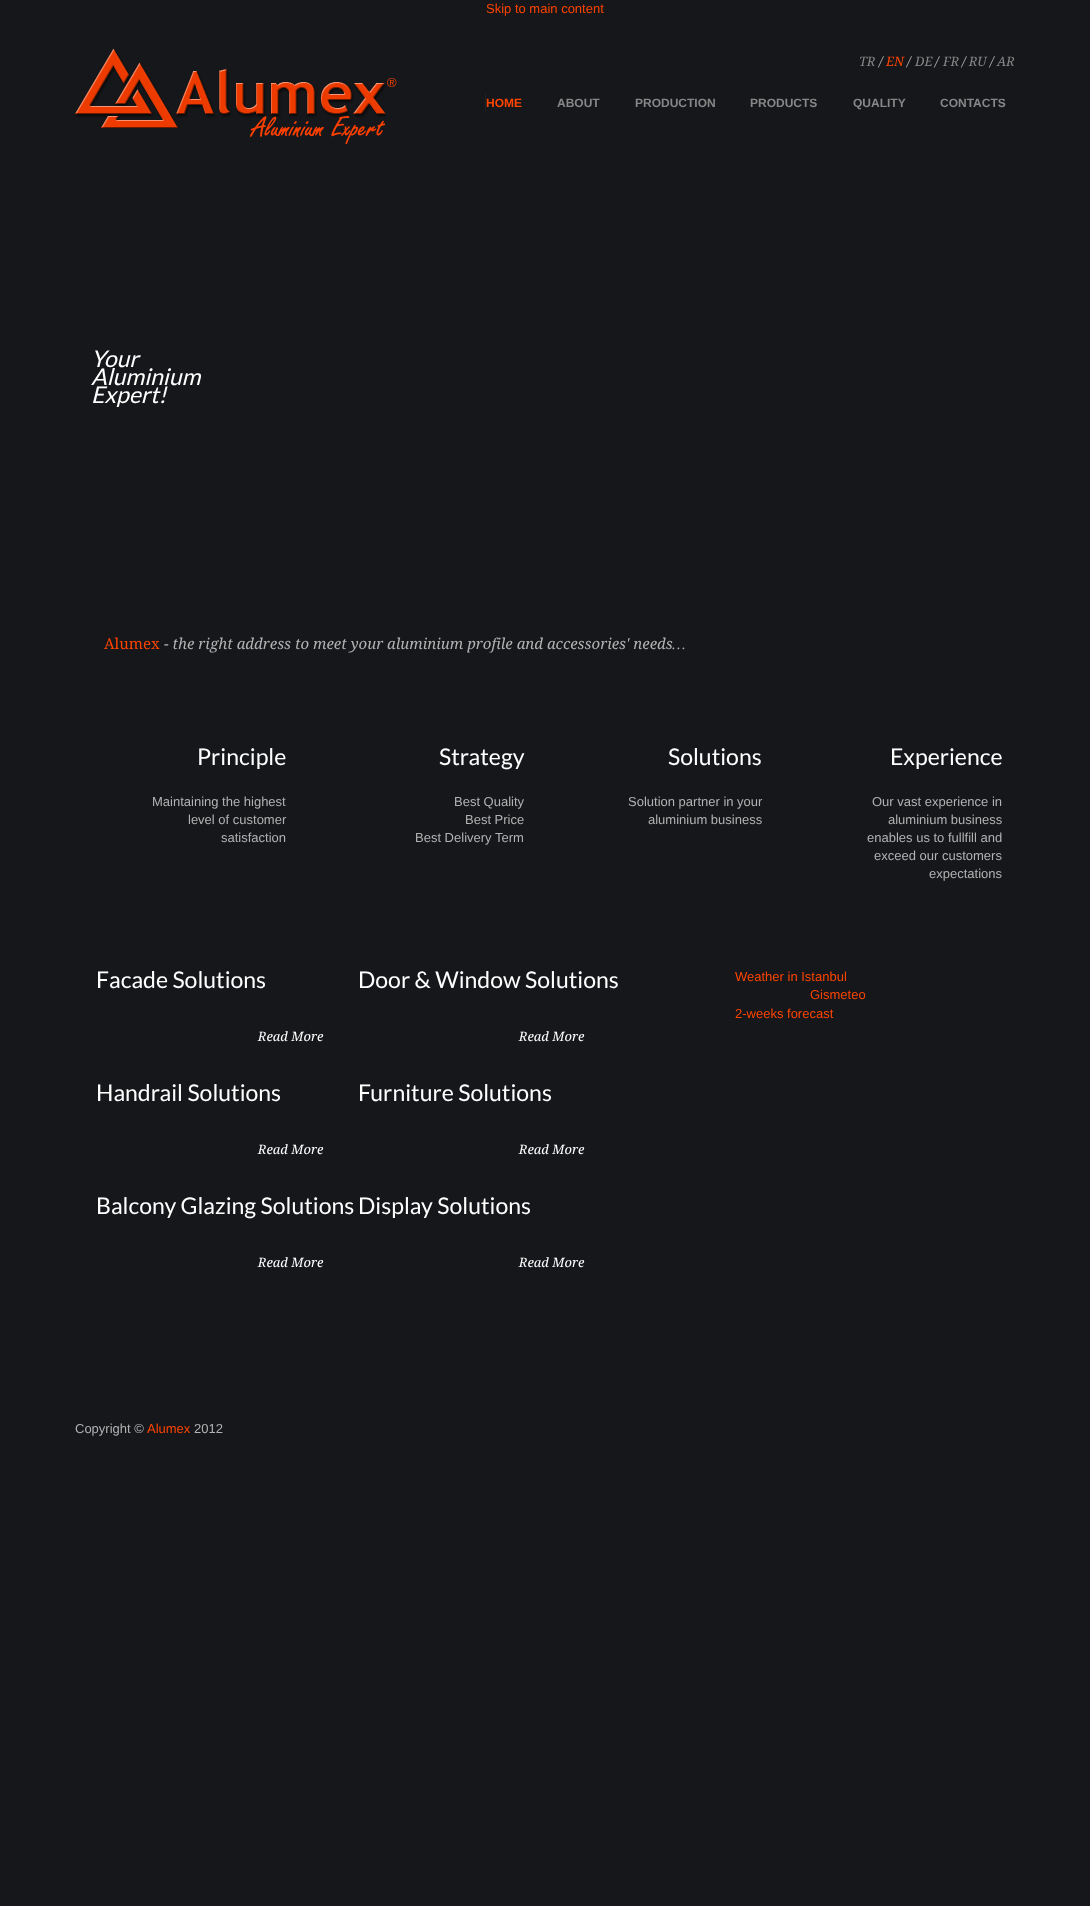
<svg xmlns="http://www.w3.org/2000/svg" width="1090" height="1906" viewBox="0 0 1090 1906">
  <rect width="100%" height="100%" fill="#15171a"/>
  <image x="75" y="48" width="311" height="80" href="img/1.png"/>
  <image x="250" y="116" width="135" height="29" href="img/2.png"/>
  <path d="M485 94h1v18H485z" fill="#1f2124"/>
  <text x="486" y="13" font-family="Liberation Sans" font-size="13" fill="#f40">Skip to main content</text>
  <text x="859" y="66" font-family="Droid Serif" font-size="13" font-style="italic" fill="#878787">TR</text>
  <text x="879" y="66" font-family="Droid Serif" font-size="13" font-style="italic" fill="#b2b2b2">/</text>
  <text x="886" y="66" font-family="Droid Serif" font-size="13" font-style="italic" fill="#f40">EN</text>
  <text x="907" y="66" font-family="Droid Serif" font-size="13" font-style="italic" fill="#b2b2b2">/</text>
  <text x="915" y="66" font-family="Droid Serif" font-size="13" font-style="italic" fill="#878787">DE</text>
  <text x="935" y="66" font-family="Droid Serif" font-size="13" font-style="italic" fill="#b2b2b2">/</text>
  <text x="943" y="66" font-family="Droid Serif" font-size="13" font-style="italic" fill="#878787">FR</text>
  <text x="962" y="66" font-family="Droid Serif" font-size="13" font-style="italic" fill="#b2b2b2">/</text>
  <text x="969" y="66" font-family="Droid Serif" font-size="13" font-style="italic" fill="#878787">RU</text>
  <text x="990" y="66" font-family="Droid Serif" font-size="13" font-style="italic" fill="#b2b2b2">/</text>
  <text x="997" y="66" font-family="Droid Serif" font-size="13" font-style="italic" fill="#878787">AR</text>
  <text x="387" y="87" font-family="Liberation Sans" font-size="13" fill="#f40">®</text>
  <text x="486" y="107" font-family="Liberation Sans" font-size="12" font-weight="bold" fill="#f40">HOME</text>
  <g font-family="Liberation Sans" font-size="12" font-weight="bold" fill="#878787">
    <text x="557" y="107">ABOUT</text>
    <text x="635" y="107">PRODUCTION</text>
    <text x="750" y="107">PRODUCTS</text>
    <text x="853" y="107">QUALITY</text>
    <text x="940" y="107">CONTACTS</text>
  </g>
  <g font-family="Lato" font-size="23" font-style="italic" fill="#fff">
    <text x="91" y="367">Your</text>
    <text x="91" y="385">Aluminium</text>
    <text x="91" y="403">Expert!</text>
  </g>
  <text x="104" y="649" font-family="Droid Serif" font-size="15" fill="#f40">Alumex</text>
  <text x="164" y="649" font-family="Droid Serif" font-size="15" font-style="italic" fill="#b2b2b2">- the right address to meet your aluminium profile and accessories' needs</text>
  <text x="672" y="649" font-family="Liberation Serif" font-size="15" font-style="italic" fill="#b2b2b2">…</text>
  <text x="197" y="765" font-family="Lato" font-size="23" fill="#fff">Principle</text>
  <g font-family="Liberation Sans" font-size="13" fill="#b2b2b2">
    <text x="152" y="806">Maintaining the highest</text>
    <text x="188" y="824">level of customer</text>
    <text x="221" y="842">satisfaction</text>
  </g>
  <text x="439" y="765" font-family="Lato" font-size="23" fill="#fff">Strategy</text>
  <g font-family="Liberation Sans" font-size="13" fill="#b2b2b2">
    <text x="454" y="806">Best Quality</text>
    <text x="465" y="824">Best Price</text>
    <text x="415" y="842">Best Delivery Term</text>
  </g>
  <text x="668" y="765" font-family="Lato" font-size="23" fill="#fff">Solutions</text>
  <g font-family="Liberation Sans" font-size="13" fill="#b2b2b2">
    <text x="628" y="806">Solution partner in your</text>
    <text x="648" y="824">aluminium business</text>
  </g>
  <text x="890" y="765" font-family="Lato" font-size="23" fill="#fff">Experience</text>
  <g font-family="Liberation Sans" font-size="13" fill="#b2b2b2">
    <text x="872" y="806">Our vast experience in</text>
    <text x="888" y="824">aluminium business</text>
    <text x="867" y="842">enables us to fullfill and</text>
    <text x="874" y="860">exceed our customers</text>
    <text x="929" y="878">expectations</text>
  </g>
  <g font-family="Lato" font-size="23" fill="#fff">
    <text x="96" y="988">Facade Solutions</text>
    <text x="358" y="988">Door &amp; Window Solutions</text>
  </g>
  <g font-family="Droid Serif" font-size="13" font-style="italic" fill="#fff">
    <text x="258" y="1041">Read More</text>
    <text x="519" y="1041">Read More</text>
  </g>
  <g font-family="Lato" font-size="23" fill="#fff">
    <text x="96" y="1101">Handrail Solutions</text>
    <text x="358" y="1101">Furniture Solutions</text>
  </g>
  <g font-family="Droid Serif" font-size="13" font-style="italic" fill="#fff">
    <text x="258" y="1154">Read More</text>
    <text x="519" y="1154">Read More</text>
  </g>
  <g font-family="Lato" font-size="23" fill="#fff">
    <text x="96" y="1214">Balcony Glazing Solutions</text>
    <text x="358" y="1214">Display Solutions</text>
  </g>
  <g font-family="Droid Serif" font-size="13" font-style="italic" fill="#fff">
    <text x="258" y="1267">Read More</text>
    <text x="519" y="1267">Read More</text>
  </g>
  <g font-family="Liberation Sans" font-size="13" fill="#f40">
    <text x="735" y="981">Weather in Istanbul</text>
    <text x="810" y="999">Gismeteo</text>
    <text x="735" y="1018">2-weeks forecast</text>
  </g>
  <text x="75" y="1433" font-family="Liberation Sans" font-size="13" fill="#b2b2b2">Copyright ©</text>
  <text x="147" y="1433" font-family="Liberation Sans" font-size="13" fill="#f40">Alumex</text>
  <text x="194" y="1433" font-family="Liberation Sans" font-size="13" fill="#b2b2b2">2012</text>
</svg>
